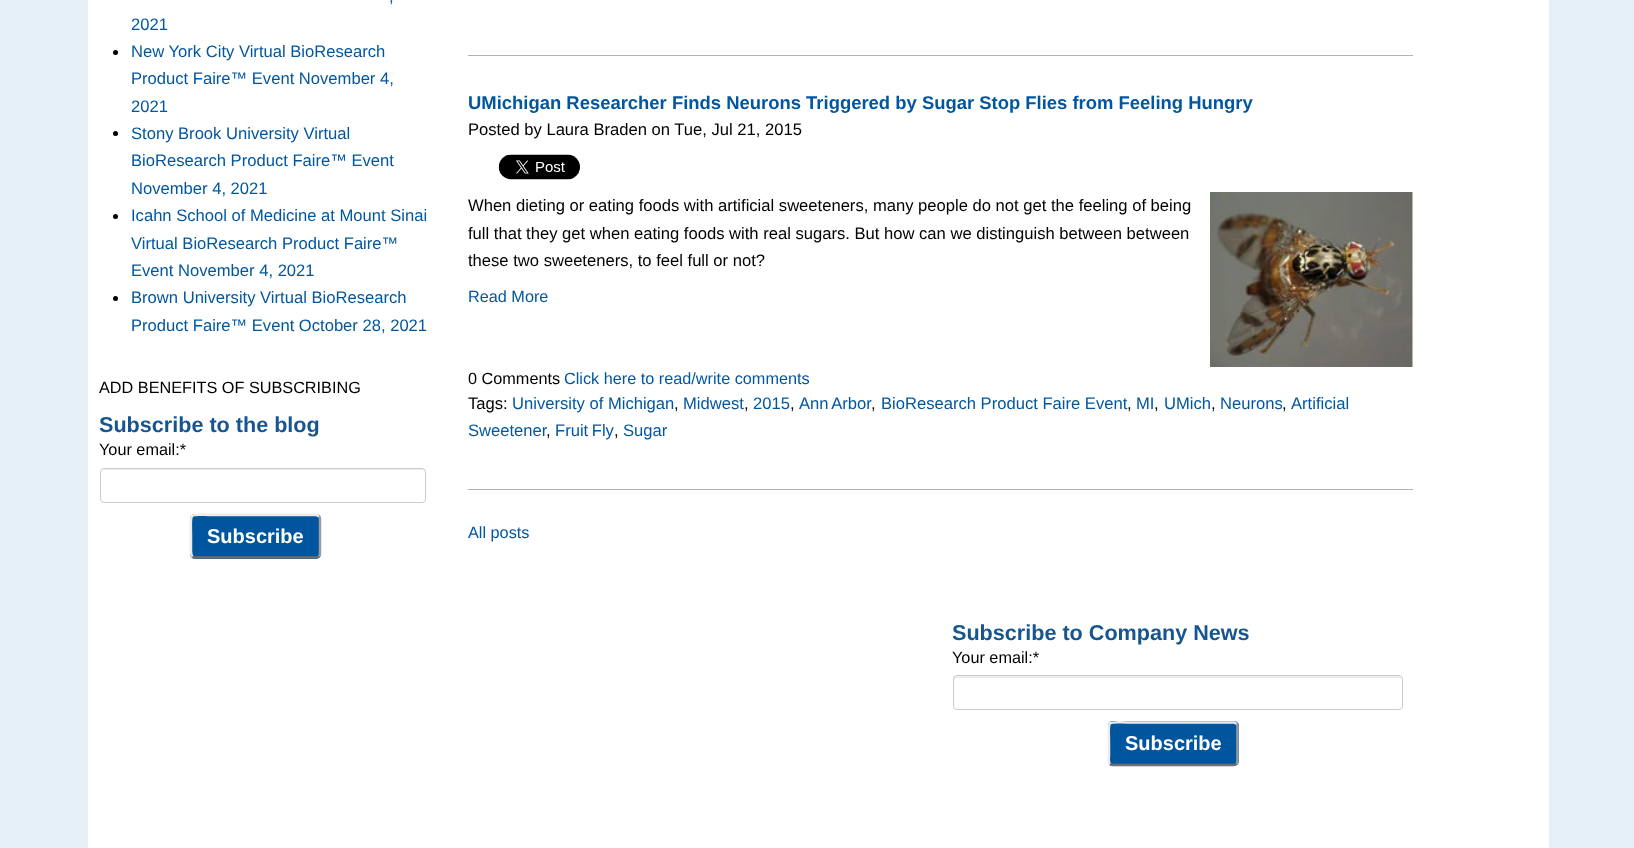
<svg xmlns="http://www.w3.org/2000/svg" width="1634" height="848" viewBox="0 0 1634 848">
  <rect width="100%" height="100%" fill="#e6f0f9"/>
  <path d="M88 0h1461v848H88z" fill="#fff"/>
  <circle cx="115.5" cy="52.5" r="2.5" fill="#000"/>
  <circle cx="115.5" cy="133.5" r="2.5" fill="#000"/>
  <circle cx="115.5" cy="216.5" r="2.5" fill="#000"/>
  <circle cx="115.5" cy="298.5" r="2.5" fill="#000"/>
  <path d="M104 470H422C424 470 425 471 425 472C425 470 424 469 422 469H103L101 471V472C101 471 102 470 104 470Z" fill="#ececec"/>
  <rect x="100.5" y="468.5" width="325" height="34" rx="3.5" fill="none" stroke="#ccc"/>
  <rect x="190" y="514" width="131" height="45" rx="5" fill="#00559f"/>
  <path d="M319 516C319.5 517 320 518 320 519V554C320 554.5 319.5 555.5 319 556.5" fill="none" stroke="#9d9d9d" stroke-width="2.5"/>
  <path d="M319 556.5C318 557 317 557.5 316 557.5H195C194 557.5 193 557 192.5 556.5" fill="none" stroke="#6e6e6e" stroke-width="2.5"/>
  <path d="M192.5 556.5C190.5 554.5 191 550 191 548V536C191 510 187 515 215 515H316L319 516" fill="none" stroke="#ececec" stroke-width="2.5"/>
  <path d="M468 55h945v1H468z" fill="#b3b3b3"/>
  <path d="M468 489h945v1H468z" fill="#b3b3b3"/>
  <image x="498" y="154" width="82" height="26" href="img/1.png"/>
  <image x="1210" y="192" width="203" height="175" href="img/2.png"/>
  <path d="M956 678H1399C1400 678 1401 679 1401 680C1401 678 1401 676 1398 676H956L954 677V680C954 679 955 678 956 678Z" fill="#ececec"/>
  <rect x="953.5" y="675.5" width="449" height="34" rx="3.5" fill="none" stroke="#ccc"/>
  <rect x="1108" y="721" width="131" height="45" rx="5" fill="#00559f"/>
  <path d="M1236.5 723.5C1237 724.5 1237.5 725.5 1237.5 726V761C1237.5 762 1237 763 1236.5 764" fill="none" stroke="#9d9d9d" stroke-width="2.5"/>
  <path d="M1236.5 764C1235.5 764.5 1234.5 765 1234 765H1112.5C1111.5 765 1110.5 764.5 1110 764" fill="none" stroke="#6e6e6e" stroke-width="2.5"/>
  <path d="M1110 764C1108 762 1109 757.5 1109 755.5V744C1109 717.5 1104.5 722.5 1132.5 722.5H1234L1236.5 723.5" fill="none" stroke="#ececec" stroke-width="2.5"/>
  <g font-family="Liberation Sans" font-size="16.6" fill="#00569f">
    <text x="389" y="2">,</text>
    <text x="131" y="30">2021</text>
    <text x="131" y="57">New York City Virtual BioResearch</text>
    <text x="131" y="84">Product Faire™ Event November 4,</text>
    <text x="131" y="112">2021</text>
    <text x="131" y="139">Stony Brook University Virtual</text>
    <text x="131" y="166">BioResearch Product Faire™ Event</text>
    <text x="131" y="194">November 4, 2021</text>
    <text x="131" y="221">Icahn School of Medicine at Mount Sinai</text>
    <text x="131" y="249">Virtual BioResearch Product Faire™</text>
    <text x="131" y="276">Event November 4, 2021</text>
    <text x="131" y="303">Brown University Virtual BioResearch</text>
    <text x="131" y="331">Product Faire™ Event October 28, 2021</text>
  </g>
  <text x="99" y="393" font-family="Liberation Sans" font-size="16.25" fill="#000">ADD BENEFITS OF SUBSCRIBING</text>
  <text x="99" y="432" font-family="Liberation Sans" font-size="21.6" font-weight="bold" fill="#17558f">Subscribe to the blog</text>
  <text x="99" y="455" font-family="Liberation Sans" font-size="16.25" fill="#000">Your email:*</text>
  <text x="207" y="543" font-family="Liberation Sans" font-size="20" font-weight="bold" fill="#fff">Subscribe</text>
  <text x="468" y="109" font-family="Liberation Sans" font-size="18.45" font-weight="bold" fill="#00569f">UMichigan Researcher Finds Neurons Triggered by Sugar Stop Flies from Feeling Hungry</text>
  <g font-family="Liberation Sans" font-size="16.6" fill="#000">
    <text x="468" y="135">Posted by Laura Braden on Tue, Jul 21, 2015</text>
    <text x="468" y="211">When dieting or eating foods with artificial sweeteners, many people do not get the feeling of being</text>
    <text x="468" y="239">full that they get when eating foods with real sugars. But how can we distinguish between between</text>
    <text x="468" y="266">these two sweeteners, to feel full or not?</text>
  </g>
  <text x="468" y="302" font-family="Liberation Sans" font-size="16.25" fill="#00569f">Read More</text>
  <text x="468" y="384" font-family="Liberation Sans" font-size="16.25" fill="#000">0 Comments</text>
  <text x="564" y="384" font-family="Liberation Sans" font-size="16.25" fill="#00569f">Click here to read/write comments</text>
  <text x="468" y="409" font-family="Liberation Sans" font-size="16.6" fill="#000">Tags:</text>
  <text x="512" y="409" font-family="Liberation Sans" font-size="16.6" fill="#00569f">University of Michigan</text>
  <text x="674" y="409" font-family="Liberation Sans" font-size="16.6" fill="#000">,</text>
  <text x="683" y="409" font-family="Liberation Sans" font-size="16.6" fill="#00569f">Midwest</text>
  <text x="744" y="409" font-family="Liberation Sans" font-size="16.6" fill="#000">,</text>
  <text x="753" y="409" font-family="Liberation Sans" font-size="16.6" fill="#00569f">2015</text>
  <text x="790" y="409" font-family="Liberation Sans" font-size="16.6" fill="#000">,</text>
  <text x="799" y="409" word-spacing="-1" font-family="Liberation Sans" font-size="16.6" fill="#00569f">Ann Arbor</text>
  <text x="871" y="409" font-family="Liberation Sans" font-size="16.6" fill="#000">,</text>
  <text x="881" y="409" font-family="Liberation Sans" font-size="16.6" fill="#00569f">BioResearch Product Faire Event</text>
  <text x="1127" y="409" font-family="Liberation Sans" font-size="16.6" fill="#000">,</text>
  <text x="1136" y="409" font-family="Liberation Sans" font-size="16.6" fill="#00569f">MI</text>
  <text x="1154" y="409" font-family="Liberation Sans" font-size="16.6" fill="#000">,</text>
  <text x="1164" y="409" font-family="Liberation Sans" font-size="16.6" fill="#00569f">UMich</text>
  <text x="1211" y="409" font-family="Liberation Sans" font-size="16.6" fill="#000">,</text>
  <text x="1220" y="409" font-family="Liberation Sans" font-size="16.6" fill="#00569f">Neurons</text>
  <text x="1282" y="409" font-family="Liberation Sans" font-size="16.6" fill="#000">,</text>
  <g font-family="Liberation Sans" font-size="16.6" fill="#00569f">
    <text x="1291" y="409">Artificial</text>
    <text x="468" y="436">Sweetener</text>
  </g>
  <text x="546" y="436" font-family="Liberation Sans" font-size="16.6" fill="#000">,</text>
  <text x="555" y="436" word-spacing="-1" font-family="Liberation Sans" font-size="16.6" fill="#00569f">Fruit Fly</text>
  <text x="614" y="436" font-family="Liberation Sans" font-size="16.6" fill="#000">,</text>
  <text x="623" y="436" font-family="Liberation Sans" font-size="16.6" fill="#00569f">Sugar</text>
  <text x="468" y="538" font-family="Liberation Sans" font-size="16.25" fill="#00569f">All posts</text>
  <text x="952" y="640" font-family="Liberation Sans" font-size="21.6" font-weight="bold" fill="#17558f">Subscribe to Company News</text>
  <text x="952" y="663" font-family="Liberation Sans" font-size="16.25" fill="#000">Your email:*</text>
  <text x="1125" y="750" font-family="Liberation Sans" font-size="20" font-weight="bold" fill="#fff">Subscribe</text>
</svg>
